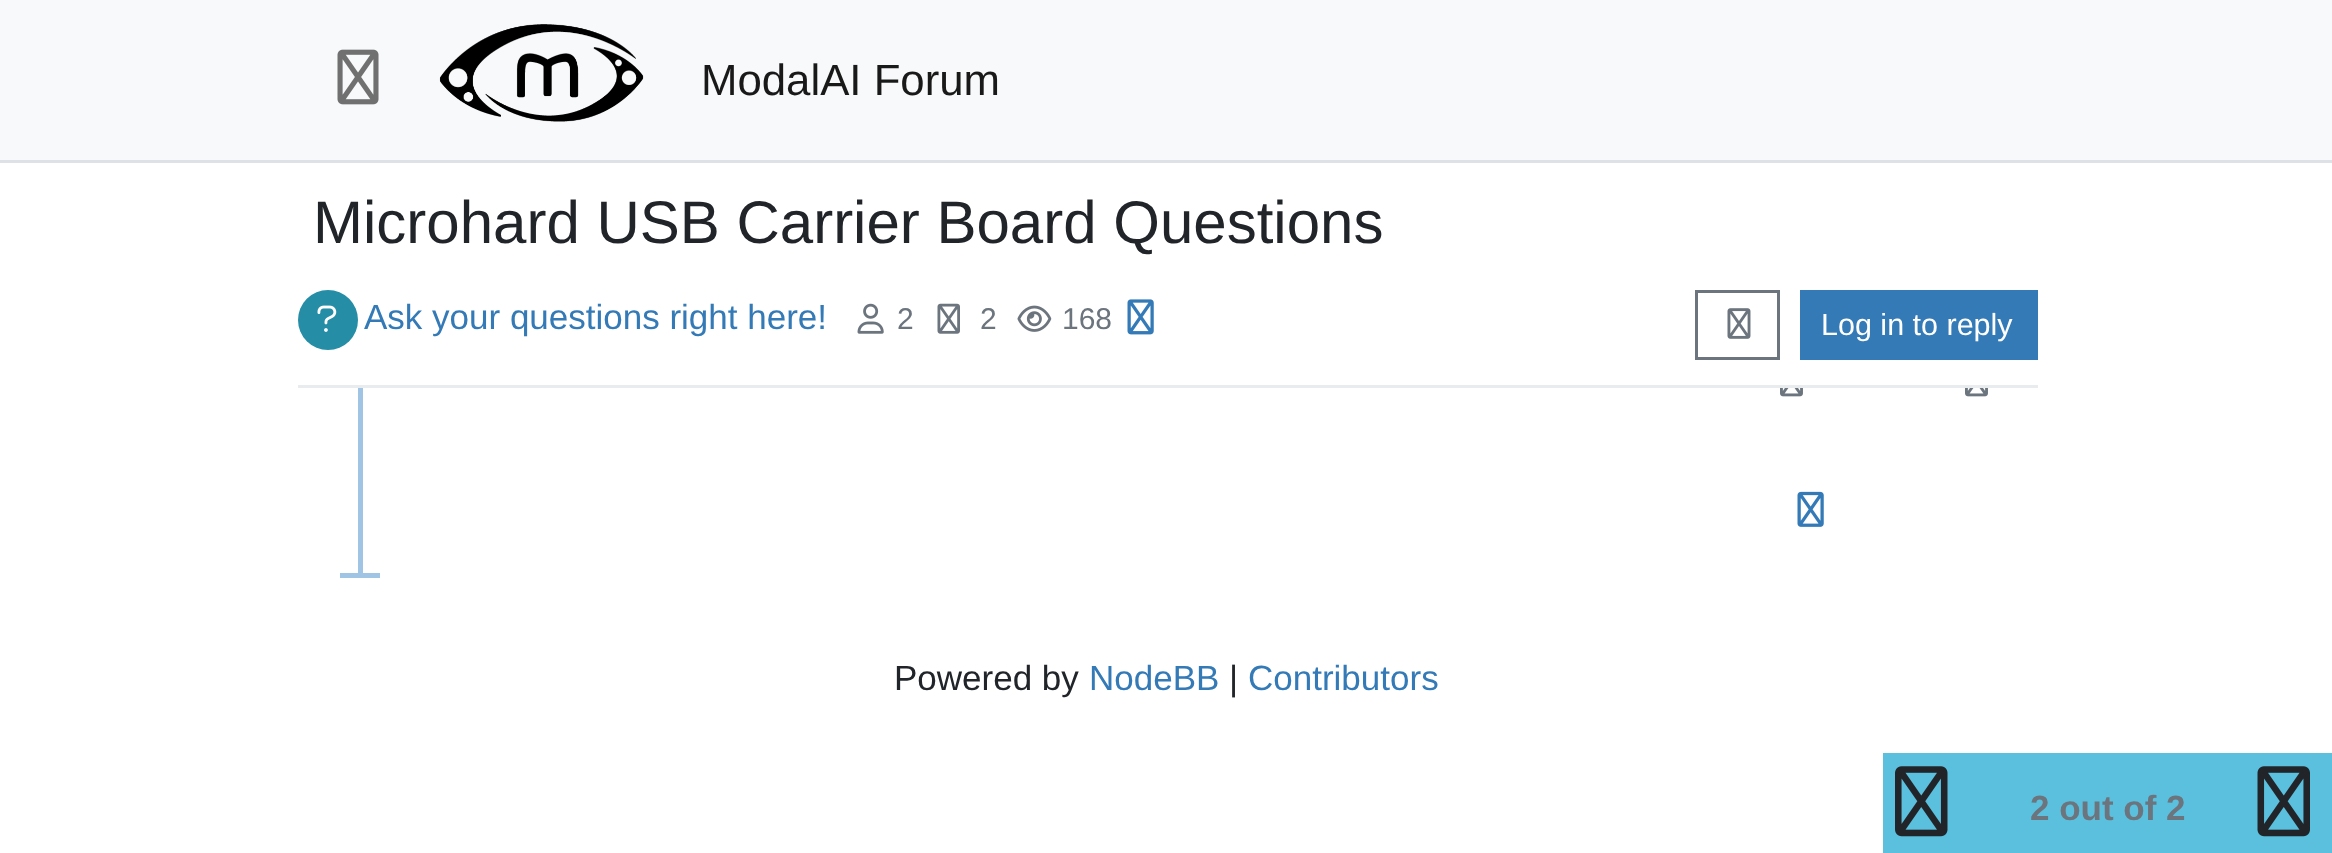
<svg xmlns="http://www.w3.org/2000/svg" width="2332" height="853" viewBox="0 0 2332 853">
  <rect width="100%" height="100%" fill="#fff"/>
  <path d="M0 0h2332v160H0z" fill="#f8f9fa"/>
  <path d="M0 160h2332v3H0z" fill="#dee2e6"/>
  <image x="337" y="49" width="42" height="56" href="img/1.png"/>
  <image x="439" y="24" width="205" height="98" href="img/2.png"/>
  <path d="M298 385h1740v3H298z" fill="#e9ecef"/>
  <circle cx="328" cy="320" r="30" fill="#258ea6"/>
  <image x="317" y="305" width="20" height="27" href="img/3.png"/>
  <image x="857" y="303" width="27" height="31" href="img/4.png"/>
  <image x="937" y="303" width="23" height="31" href="img/5.png"/>
  <image x="1017" y="305" width="35" height="27" href="img/6.png"/>
  <image x="1127" y="299" width="27" height="36" href="img/7.png"/>
  <path d="M1696.5 291.5h82v67H1696.5z" fill="none" stroke="#6c757d" stroke-width="3"/>
  <image x="1727" y="308" width="24" height="31" href="img/8.png"/>
  <path d="M1800 290h238v70H1800z" fill="#337ab7"/>
  <path d="M358 388h5v190H358z" fill="#a0c4e4"/>
  <image x="1780" y="388" width="23" height="9" href="img/9.png"/>
  <image x="1965" y="388" width="23" height="9" href="img/9.png"/>
  <image x="1797" y="491" width="27" height="36" href="img/10.png"/>
  <path d="M340 573h40v5H340z" fill="#a0c4e4"/>
  <path d="M1883 753h449v100H1883z" fill="#5bc0de"/>
  <image x="1895" y="766" width="53" height="71" href="img/11.png"/>
  <image x="2257" y="766" width="53" height="71" href="img/12.png"/>
  <text x="701" y="95" font-family="Liberation Sans" font-size="43.75" fill="#191919">ModalAI Forum</text>
  <text x="313" y="243" font-family="Liberation Sans" font-size="60" fill="#212529">Microhard USB Carrier Board Questions</text>
  <text x="364" y="329" font-family="Liberation Sans" font-size="35" fill="#337ab7">Ask your questions right here!</text>
  <g font-family="Liberation Sans" font-size="30" fill="#6c757d">
    <text x="897" y="329">2</text>
    <text x="980" y="329">2</text>
    <text x="1062" y="329">168</text>
  </g>
  <text x="1821" y="335" font-family="Liberation Sans" font-size="30.5" fill="#fff">Log in to reply</text>
  <text x="2030" y="820" font-family="Liberation Sans" font-size="35" font-weight="bold" fill="#6c757d">2 out of 2</text>
  <text x="894" y="690" font-family="Liberation Sans" font-size="35" fill="#212529">Powered by</text>
  <text x="1089" y="690" font-family="Liberation Sans" font-size="35" fill="#337ab7">NodeBB</text>
  <text x="1229" y="690" font-family="Liberation Sans" font-size="35" fill="#212529">|</text>
  <text x="1248" y="690" font-family="Liberation Sans" font-size="35" fill="#337ab7">Contributors</text>
</svg>
